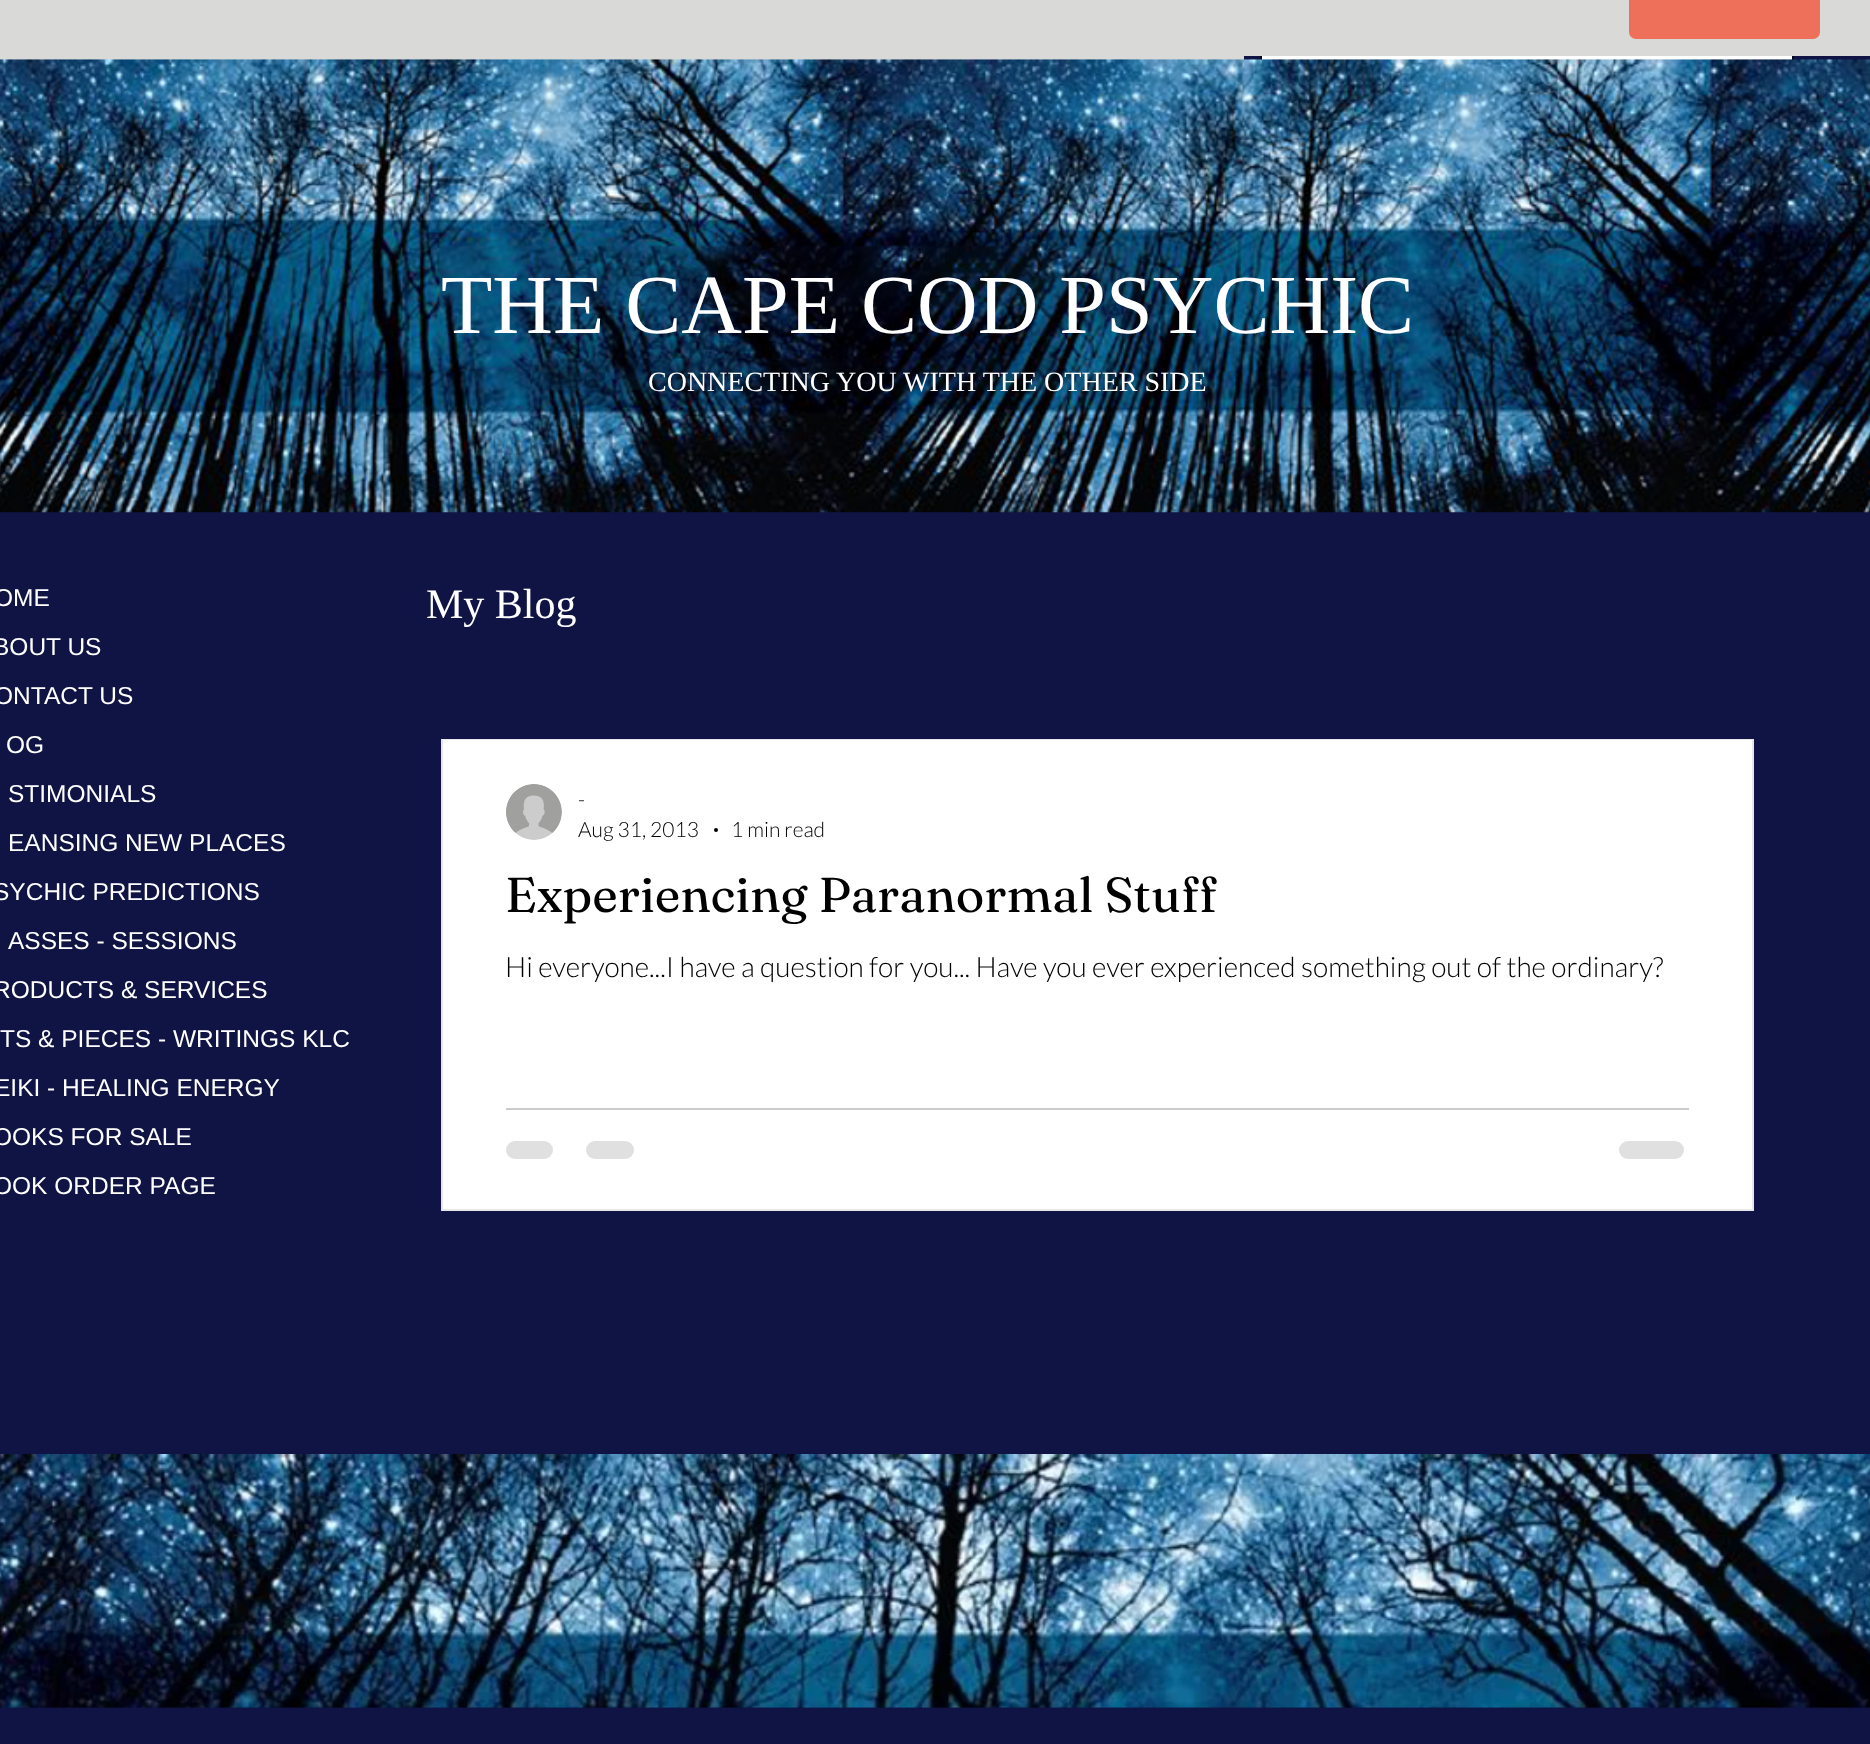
<svg xmlns="http://www.w3.org/2000/svg" width="1870" height="1744" viewBox="0 0 1870 1744">
  <rect width="100%" height="100%" fill="#101444"/>
  <path d="M1261 1h532v77H1261z" fill="none" stroke="#06081b" stroke-width="2"/>
  <path d="M1262 56h530v4H1262z" fill="#fff"/>
  <path d="M0 0h1244v60H0z" fill="#d9d9d8"/>
  <path d="M1244 0h626v56H1244z" fill="#d9d9d8"/>
  <rect x="1629" y="-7" width="191" height="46" rx="7" fill="#ee705b"/>
  <image x="0" y="59" width="1870" height="454" href="img/1.png"/>
  <path d="M442 740h1311v470H442z" fill="none" stroke="#e8e6e6" stroke-width="2"/>
  <path d="M443 740h1309v469H443z" fill="#fff"/>
  <image x="506" y="784" width="56" height="56" href="img/2.png"/>
  <circle cx="716" cy="830" r="2" fill="#000"/>
  <path d="M506 1108h1183v2H506z" fill="#ccc"/>
  <rect x="506" y="1141" width="47" height="18" rx="9" fill="#e0e0e0"/>
  <rect x="586" y="1141" width="48" height="18" rx="9" fill="#e0e0e0"/>
  <rect x="1619" y="1141" width="65" height="18" rx="9" fill="#e0e0e0"/>
  <image x="0" y="1454" width="1870" height="254" href="img/3.png"/>
  <text x="441" y="333" font-family="Liberation Serif" font-size="84" fill="#fff">THE CAPE COD PSYCHIC</text>
  <text x="648" y="391" font-family="Liberation Serif" font-size="28" fill="#fff">CONNECTING YOU WITH THE OTHER SIDE</text>
  <g font-family="Liberation Sans" font-size="24.5" fill="#fff">
    <text x="-6" y="606">OME</text>
    <text x="-7" y="655">BOUT US</text>
    <text x="-6" y="704">ONTACT US</text>
    <text x="6" y="753">OG</text>
    <text x="8" y="802">STIMONIALS</text>
    <text x="8" y="851">EANSING NEW PLACES</text>
    <text x="-7" y="900">SYCHIC PREDICTIONS</text>
    <text x="8" y="949">ASSES - SESSIONS</text>
    <text x="-7" y="998">RODUCTS &amp; SERVICES</text>
    <text x="0" y="1047">TS &amp; PIECES - WRITINGS KLC</text>
    <text x="-6" y="1096">EIKI - HEALING ENERGY</text>
    <text x="-7" y="1145">OOKS FOR SALE</text>
    <text x="-7" y="1194">OOK ORDER PAGE</text>
  </g>
  <text x="426" y="618" font-family="Liberation Serif" font-size="42" fill="#fff">My Blog</text>
  <g font-family="Lato" font-size="21" font-weight="300" fill="#000">
    <text x="578" y="807">-</text>
    <text x="578" y="837">Aug 31, 2013</text>
    <text x="731" y="837">1 min read</text>
  </g>
  <text x="505" y="912" font-family="Fraunces" font-size="49" fill="#000">Experiencing Paranormal Stuff</text>
  <text x="505" y="977" font-family="Lato" font-size="28" font-weight="300" fill="#000">Hi everyone...I have a question for you... Have you ever experienced something out of the ordinary?</text>
</svg>
